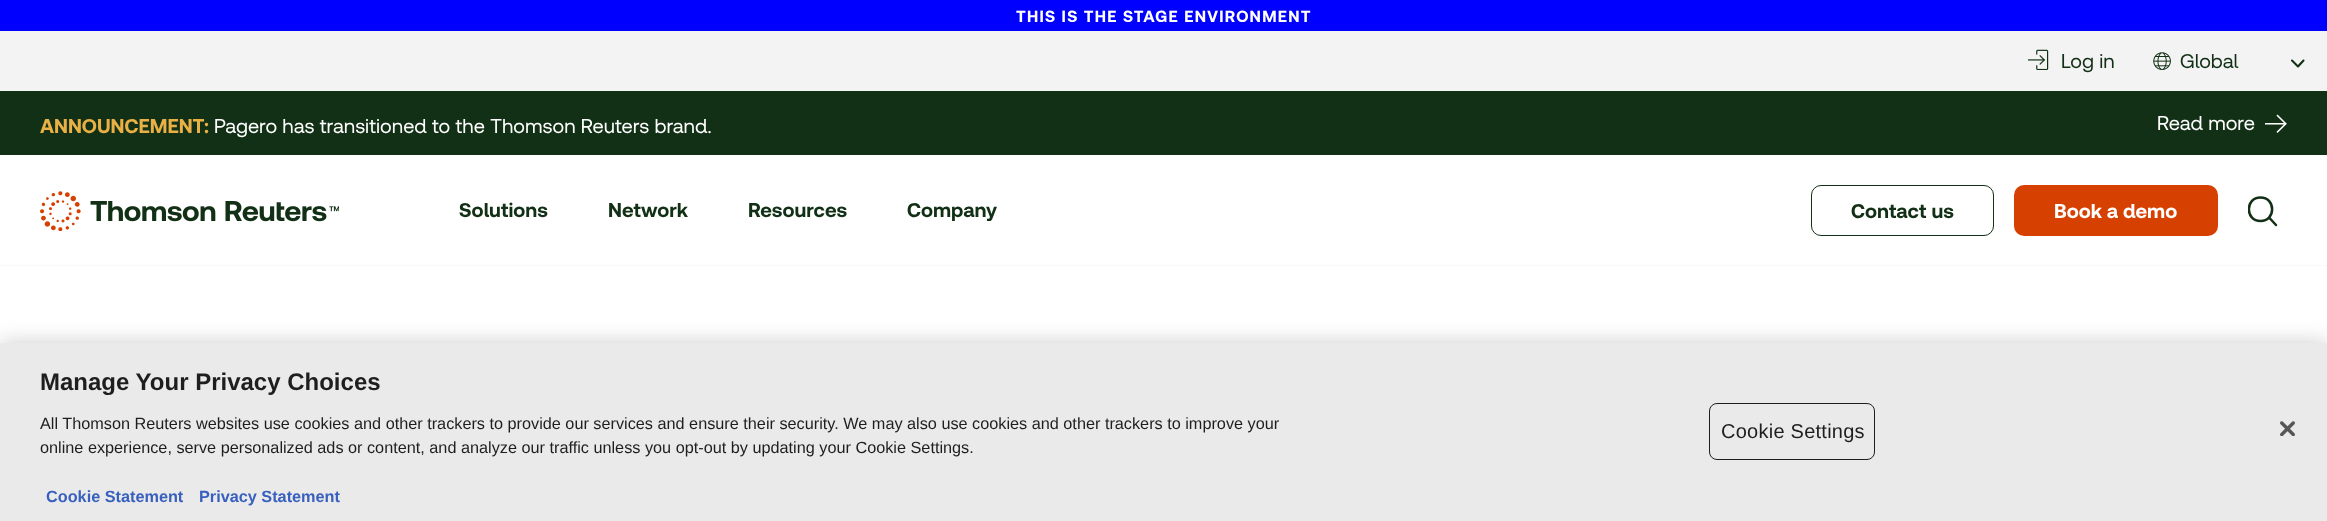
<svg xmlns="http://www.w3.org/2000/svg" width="2327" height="521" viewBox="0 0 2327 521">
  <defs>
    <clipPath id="clip1"><path d="M2248 196h30v30H2248z"/></clipPath>
  </defs>
  <rect width="100%" height="100%" fill="#fff"/>
  <path d="M0 0h2327v31H0z" fill="#00f"/>
  <path d="M0 31h2327v60H0z" fill="#f3f3f3"/>
  <image x="2028" y="49" width="21" height="21" href="img/1.png"/>
  <image x="2153" y="52" width="18" height="18" href="img/2.png"/>
  <path d="M2292 60.5L2298 66.5L2303.5 60.5" fill="none" stroke="#123015" stroke-width="2.1" stroke-linecap="round" stroke-linejoin="round"/>
  <path d="M0 91h2327v64H0z" fill="#123015"/>
  <image x="2265" y="114" width="22" height="19" href="img/3.png"/>
  <path d="M0 265h2327v1H0z" fill="#f8f8f8"/>
  <image x="40" y="191" width="299" height="40" href="img/4.png"/>
  <rect x="1811.5" y="185.5" width="182" height="50" rx="9.5" fill="none" stroke="#123015"/>
  <rect x="2014" y="185" width="204" height="51" rx="10" fill="#d64000"/>
  <g clip-path="url(#clip1)">
    <path d="M2260.5 221C2276 221 2276 197.5 2260.5 197.5C2245 197.5 2245 221 2260.5 221Z" fill="none" stroke="#123015" stroke-width="2.5" stroke-linecap="round" stroke-linejoin="round"/>
  </g>
  <path d="M2276 225L2269.5 218" fill="none" stroke="#123015" stroke-width="2.5" stroke-linecap="round" stroke-linejoin="round"/>
  <path d="M0 343h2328v178H0z" fill="#00000033" filter="blur(11px)"/>
  <path d="M0 343h2327v178H0z" fill="#eaeaea"/>
  <rect x="1709.5" y="403.5" width="165" height="56" rx="7.5" fill="none" stroke="#1e1e1e"/>
  <image x="2280" y="421" width="15" height="15" href="img/5.png"/>
  <text x="1016" y="22" font-family="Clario" font-size="16.25" font-weight="bold" letter-spacing="1.25" fill="#fff">THIS IS THE STAGE ENVIRONMENT</text>
  <g font-family="Clario" font-size="20" fill="#123015">
    <text x="2061" y="68">Log in</text>
    <text x="2180" y="68">Global</text>
  </g>
  <g font-family="Clario" font-size="20" font-weight="bold" fill="#e9b045">
    <text x="40" y="133">ANNOUNCEMENT</text>
    <text x="204" y="133">:</text>
  </g>
  <g font-family="Clario" font-size="20" fill="#fff">
    <text x="214" y="133">Pagero has transitioned to the Thomson Reuters brand.</text>
    <text x="2157" y="130">Read more</text>
  </g>
  <g font-family="Clario" font-size="20" font-weight="bold" fill="#123015">
    <text x="459" y="217">Solutions</text>
    <text x="608" y="217">Network</text>
    <text x="748" y="217">Resources</text>
    <text x="907" y="217">Company</text>
    <text x="1851" y="218">Contact us</text>
  </g>
  <text x="2054" y="218" font-family="Clario" font-size="20" font-weight="bold" fill="#fff">Book a demo</text>
  <text x="40" y="390" font-family="Liberation Sans" font-size="24" font-weight="bold" fill="#1e1e1e">Manage Your Privacy Choices</text>
  <g font-family="Liberation Sans" font-size="16.25" fill="#1e1e1e">
    <text x="40" y="429">All Thomson Reuters websites use cookies and other trackers to provide our services and ensure their security. We may also use cookies and other trackers to improve your</text>
    <text x="40" y="453">online experience, serve personalized ads or content, and analyze our traffic unless you opt-out by updating your Cookie Settings.</text>
  </g>
  <g font-family="Liberation Sans" font-size="16.25" font-weight="bold" fill="#3860be">
    <text x="46" y="502">Cookie Statement</text>
    <text x="199" y="502">Privacy Statement</text>
  </g>
  <text x="1721" y="438" font-family="Liberation Sans" font-size="20" letter-spacing="0.25" fill="#1e1e1e">Cookie Settings</text>
</svg>
